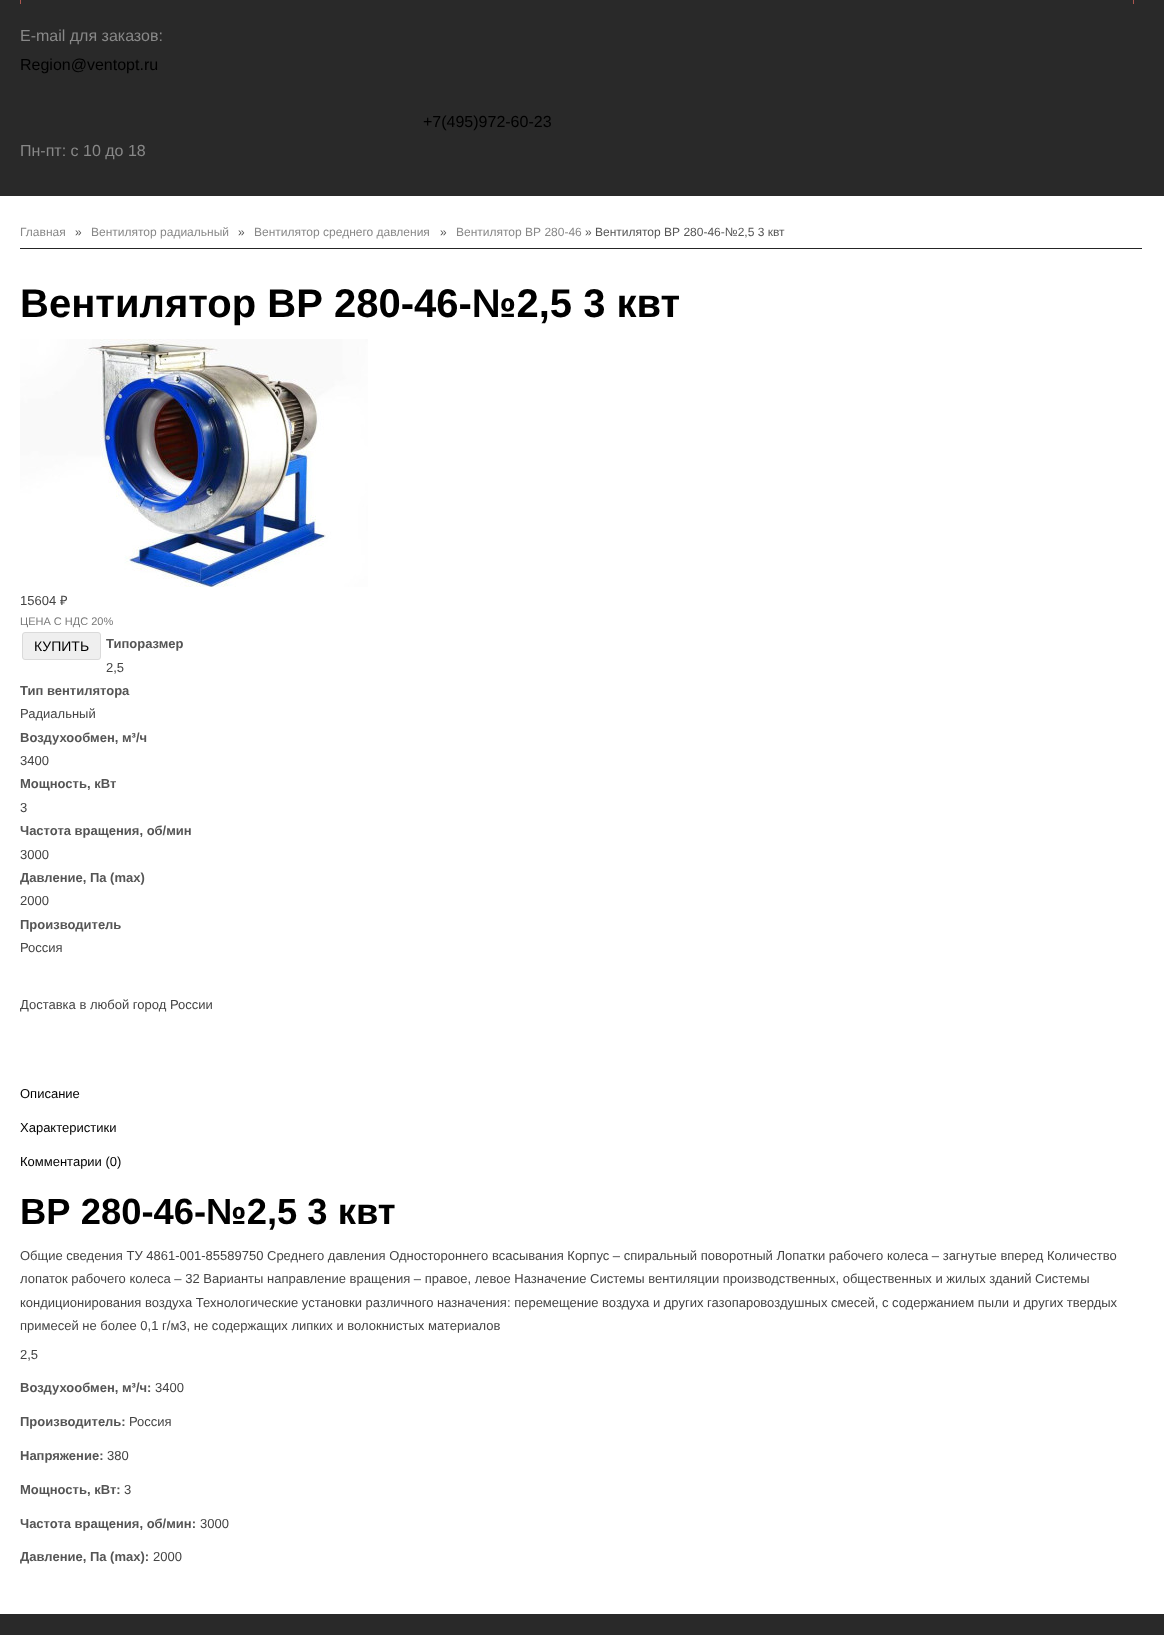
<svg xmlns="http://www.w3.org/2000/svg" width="1164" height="1635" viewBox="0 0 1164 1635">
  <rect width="100%" height="100%" fill="#292929"/>
  <path d="M20 0h1v4H20z" fill="#ab564f"/>
  <path d="M1133 0h1v4H1133z" fill="#ab564f"/>
  <path d="M0 196h1164v1418H0z" fill="#fff"/>
  <path d="M20 248h1122v1H20z" fill="#252525"/>
  <image x="20" y="339" width="348" height="248" href="img/1.png"/>
  <rect x="22.5" y="632.5" width="78" height="27" rx="2.5" fill="#efefef" stroke="#dadada"/>
  <text x="20" y="41" font-family="Liberation Sans" font-size="16" fill="#888">E-mail для заказов:</text>
  <g font-family="Liberation Sans" font-size="16" fill="#000">
    <text x="20" y="70">Region@ventopt.ru</text>
    <text x="423" y="127">+7(495)972-60-23</text>
  </g>
  <text x="20" y="156" font-family="Liberation Sans" font-size="16" fill="#888">Пн-пт: с 10 до 18</text>
  <text x="20" y="236" font-family="Liberation Sans" font-size="12" fill="#888">Главная</text>
  <text x="75" y="236" font-family="Liberation Sans" font-size="12" fill="#555">»</text>
  <text x="91" y="236" font-family="Liberation Sans" font-size="12" fill="#888">Вентилятор радиальный</text>
  <text x="238" y="236" font-family="Liberation Sans" font-size="12" fill="#555">»</text>
  <text x="254" y="236" font-family="Liberation Sans" font-size="12" fill="#888">Вентилятор среднего давления</text>
  <text x="440" y="236" font-family="Liberation Sans" font-size="12" fill="#555">»</text>
  <text x="456" y="236" font-family="Liberation Sans" font-size="12" fill="#888">Вентилятор ВР 280-46</text>
  <text x="585" y="236" font-family="Liberation Sans" font-size="12" fill="#555">» Вентилятор ВР 280-46-№2,5 3 квт</text>
  <text x="20" y="317" font-family="Liberation Sans" font-size="40" font-weight="bold" fill="#000">Вентилятор ВР 280-46-№2,5 3 квт</text>
  <text x="20" y="605" font-family="Liberation Sans" font-size="13" fill="#444">15604</text>
  <text x="60" y="605" font-family="Noto Sans" font-size="13" fill="#444">₽</text>
  <text x="20" y="625" font-family="Liberation Sans" font-size="11" fill="#7a7a7a">ЦЕНА С НДС 20%</text>
  <text x="34" y="651" font-family="Liberation Sans" font-size="14" fill="#000">КУПИТЬ</text>
  <text x="106" y="648" font-family="Liberation Sans" font-size="13" font-weight="bold" fill="#555">Типоразмер</text>
  <text x="106" y="672" font-family="Liberation Sans" font-size="13" fill="#444">2,5</text>
  <text x="20" y="695" font-family="Liberation Sans" font-size="13" font-weight="bold" fill="#555">Тип вентилятора</text>
  <text x="20" y="718" font-family="Liberation Sans" font-size="13" fill="#444">Радиальный</text>
  <text x="20" y="742" font-family="Liberation Sans" font-size="13" font-weight="bold" fill="#555">Воздухообмен, м³/ч</text>
  <text x="20" y="765" font-family="Liberation Sans" font-size="13" fill="#444">3400</text>
  <text x="20" y="788" font-family="Liberation Sans" font-size="13" font-weight="bold" fill="#555">Мощность, кВт</text>
  <text x="20" y="812" font-family="Liberation Sans" font-size="13" fill="#444">3</text>
  <text x="20" y="835" font-family="Liberation Sans" font-size="13" font-weight="bold" fill="#555">Частота вращения, об/мин</text>
  <text x="20" y="859" font-family="Liberation Sans" font-size="13" fill="#444">3000</text>
  <text x="20" y="882" font-family="Liberation Sans" font-size="13" font-weight="bold" fill="#555">Давление, Па (max)</text>
  <text x="20" y="905" font-family="Liberation Sans" font-size="13" fill="#444">2000</text>
  <text x="20" y="929" font-family="Liberation Sans" font-size="13" font-weight="bold" fill="#555">Производитель</text>
  <g font-family="Liberation Sans" font-size="13" fill="#444">
    <text x="20" y="952">Россия</text>
    <text x="20" y="1009">Доставка в любой город России</text>
  </g>
  <g font-family="Liberation Sans" font-size="13" fill="#000">
    <text x="20" y="1098">Описание</text>
    <text x="20" y="1132">Характеристики</text>
    <text x="20" y="1166">Комментарии (0)</text>
  </g>
  <text x="20" y="1224" font-family="Liberation Sans" font-size="36.4" font-weight="bold" fill="#000">ВР 280-46-№2,5 3 квт</text>
  <g font-family="Liberation Sans" font-size="13" fill="#444">
    <text x="20" y="1260">Общие сведения ТУ 4861-001-85589750 Среднего давления Одностороннего всасывания Корпус – спиральный поворотный Лопатки рабочего колеса – загнутые вперед Количество</text>
    <text x="20" y="1283">лопаток рабочего колеса – 32 Варианты направление вращения – правое, левое Назначение Системы вентиляции производственных, общественных и жилых зданий Системы</text>
    <text x="20" y="1307">кондиционирования воздуха Технологические установки различного назначения: перемещение воздуха и других газопаровоздушных смесей, с содержанием пыли и других твердых</text>
    <text x="20" y="1330">примесей не более 0,1 г/м3, не содержащих липких и волокнистых материалов</text>
    <text x="20" y="1359">2,5</text>
  </g>
  <text x="20" y="1392" font-family="Liberation Sans" font-size="13" font-weight="bold" fill="#555">Воздухообмен, м³/ч:</text>
  <text x="155" y="1392" font-family="Liberation Sans" font-size="13" fill="#444">3400</text>
  <text x="20" y="1426" font-family="Liberation Sans" font-size="13" font-weight="bold" fill="#555">Производитель:</text>
  <text x="129" y="1426" font-family="Liberation Sans" font-size="13" fill="#444">Россия</text>
  <text x="20" y="1460" font-family="Liberation Sans" font-size="13" font-weight="bold" fill="#555">Напряжение:</text>
  <text x="107" y="1460" font-family="Liberation Sans" font-size="13" fill="#444">380</text>
  <text x="20" y="1494" font-family="Liberation Sans" font-size="13" font-weight="bold" fill="#555">Мощность, кВт:</text>
  <text x="124" y="1494" font-family="Liberation Sans" font-size="13" fill="#444">3</text>
  <text x="20" y="1528" font-family="Liberation Sans" font-size="13" font-weight="bold" fill="#555">Частота вращения, об/мин:</text>
  <text x="200" y="1528" font-family="Liberation Sans" font-size="13" fill="#444">3000</text>
  <text x="20" y="1561" font-family="Liberation Sans" font-size="13" font-weight="bold" fill="#555">Давление, Па (max):</text>
  <text x="153" y="1561" font-family="Liberation Sans" font-size="13" fill="#444">2000</text>
</svg>
